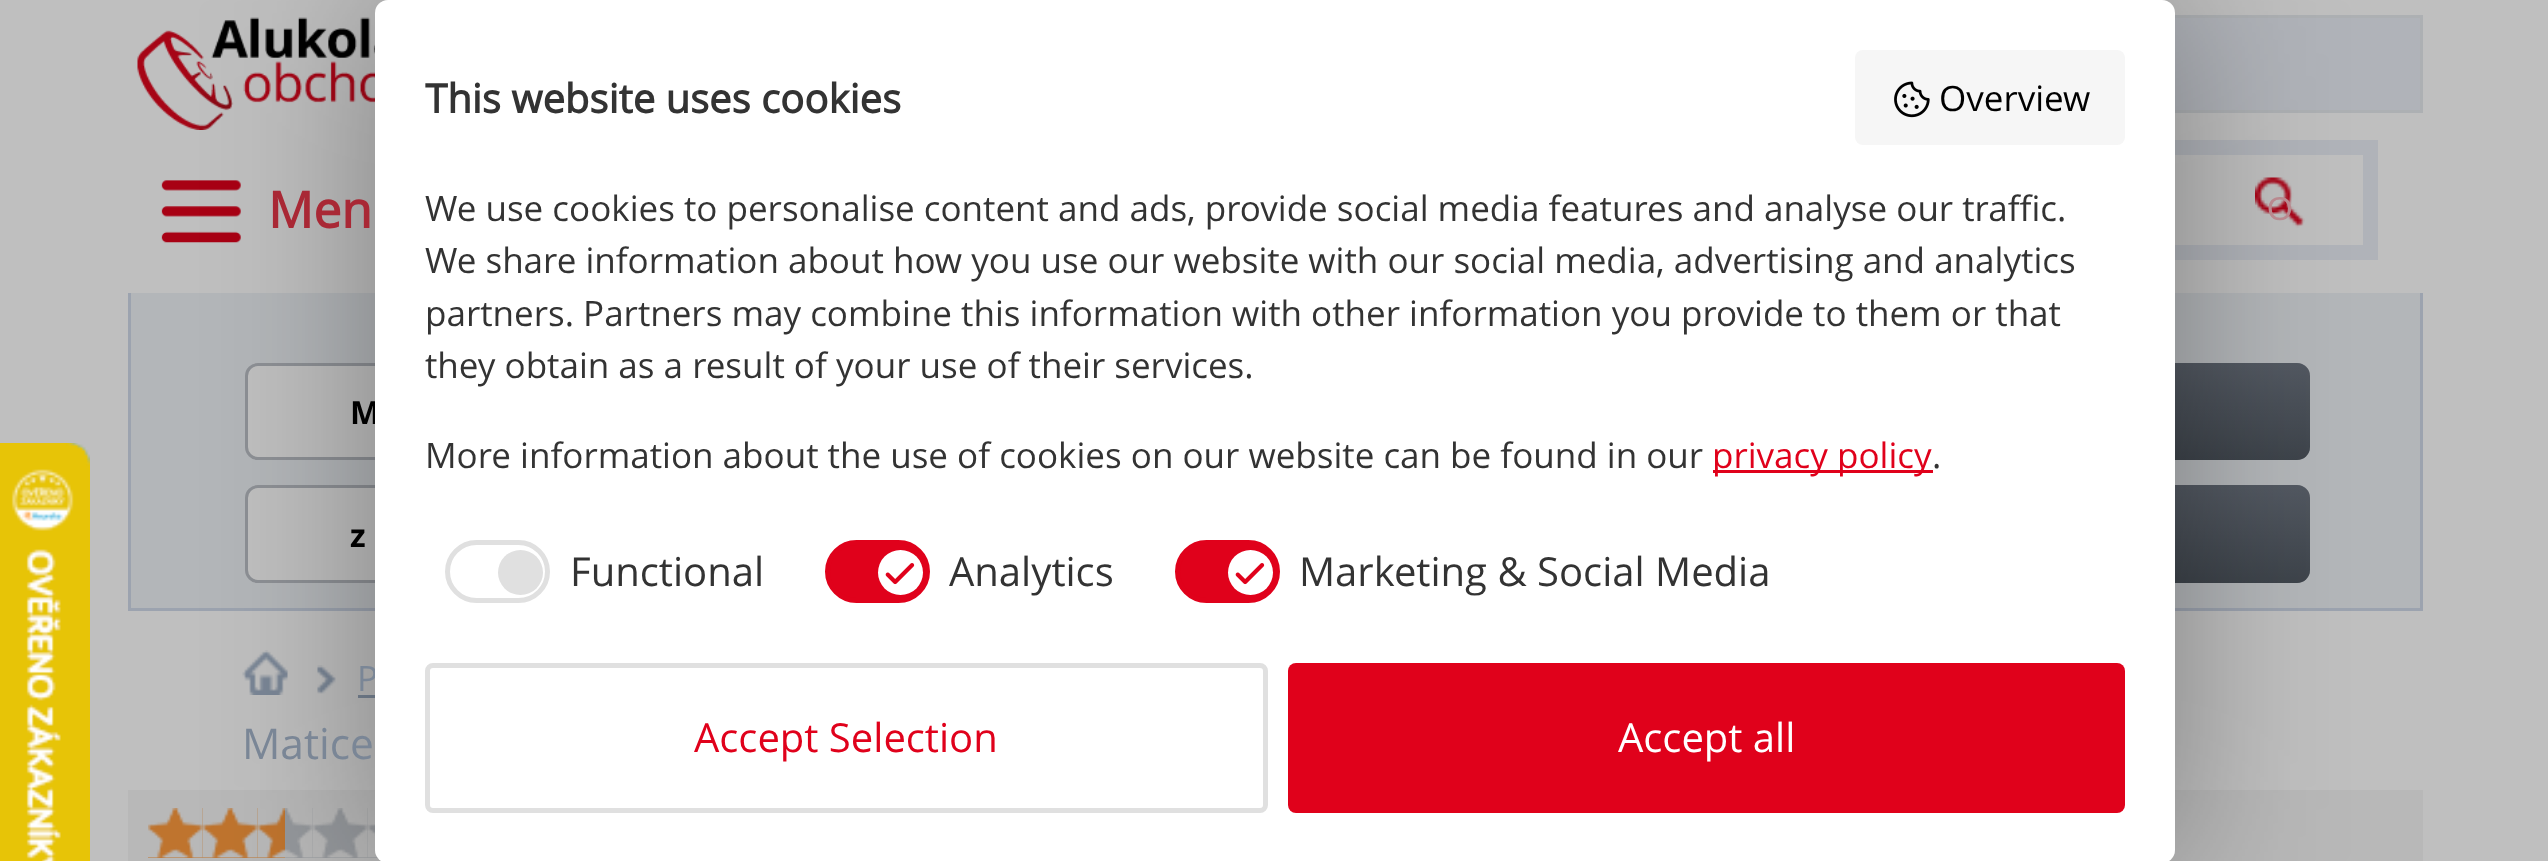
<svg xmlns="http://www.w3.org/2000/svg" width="2548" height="861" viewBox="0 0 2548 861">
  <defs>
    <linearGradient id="g1" gradientUnits="userSpaceOnUse" x1="2115" y1="363" x2="2115" y2="460"><stop offset="0" stop-color="#535962"/><stop offset="1" stop-color="#3e444b"/></linearGradient>
    <linearGradient id="g2" gradientUnits="userSpaceOnUse" x1="2115" y1="485" x2="2115" y2="583"><stop offset="0" stop-color="#535962"/><stop offset="1" stop-color="#3e444b"/></linearGradient>
  </defs>
  <rect width="100%" height="100%" fill="#bfbfbf"/>
  <image x="137" y="17" width="238" height="113" href="img/3.png"/>
  <path d="M2175 18h245v92H2175z" fill="#b0b3b9"/>
  <path d="M1576.5 16.5h845v95H1576.5z" fill="none" stroke="#adb0b3" stroke-width="3"/>
  <image x="161" y="180" width="80" height="63" href="img/4.png"/>
  <path d="M1277.5 147.5h1093v105H1277.5z" fill="none" stroke="#b0b3b9" stroke-width="15"/>
  <image x="2255" y="177" width="50" height="51" href="img/5.png"/>
  <path d="M131 293h2289v315H131z" fill="#b3b6b9"/>
  <path d="M2420 293h3v317H2420z" fill="#9ca3af"/>
  <path d="M128 608h2295v3H128z" fill="#9ca3af"/>
  <rect x="246.5" y="364.5" width="2062" height="94" rx="11.5" fill="#bfbfbf" stroke="#8d9095" stroke-width="3"/>
  <rect x="1920" y="363" width="390" height="97" rx="13" fill="url(#g1)"/>
  <rect x="246.5" y="486.5" width="2062" height="95" rx="11.5" fill="#bfbfbf" stroke="#8d9095" stroke-width="3"/>
  <rect x="1920" y="485" width="390" height="98" rx="13" fill="url(#g2)"/>
  <image x="242" y="650" width="46" height="45" href="img/7.png"/>
  <image x="317" y="665" width="19" height="29" href="img/8.png"/>
  <path d="M358 695h17v3H358z" fill="#7a8696"/>
  <path d="M128 790h2295v71H128z" fill="#b8b8b8"/>
  <path d="M148 808h137v50H148z" fill="#bf742e"/>
  <path d="M285 808h93v50H285z" fill="#95989c"/>
  <image x="148" y="808" width="55" height="50" href="img/9.png"/>
  <image x="202" y="808" width="56" height="50" href="img/10.png"/>
  <image x="257" y="808" width="56" height="50" href="img/11.png"/>
  <image x="312" y="808" width="56" height="50" href="img/12.png"/>
  <image x="367" y="808" width="11" height="50" href="img/13.png"/>
  <rect x="375" width="1800" height="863" rx="13" fill="#00000054" filter="blur(80px)"/>
  <image x="0" y="443" width="90" height="418" href="img/6.png"/>
  <path d="M128 293h3v317H128z" fill="#9ca3af"/>
  <text x="268" y="228" font-family="'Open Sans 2'" font-size="50" font-weight="bold" fill="#a92835">Men</text>
  <text x="2267" y="220" font-family="Liberation Sans" font-size="33" fill="#b9898f">O</text>
  <g font-family="Open Sans" font-size="32" font-weight="bold" fill="#000">
    <text x="350" y="424">M</text>
    <text x="350" y="547">z</text>
  </g>
  <text x="357" y="691" font-family="Open Sans" font-size="35" fill="#7a8696">P</text>
  <rect x="375" width="1800" height="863" rx="13" fill="#fff"/>
  <rect x="1177.5" y="542.5" width="100" height="58" rx="29" fill="#e0011b" stroke="#e0011b" stroke-width="5"/>
  <circle cx="1250.5" cy="572.5" r="22.5" fill="#fff"/>
  <image x="1235" y="563" width="30" height="22" href="img/2.png"/>
  <rect x="827.5" y="542.5" width="100" height="58" rx="29" fill="#e0011b" stroke="#e0011b" stroke-width="5"/>
  <circle cx="900.5" cy="572.5" r="22.5" fill="#fff"/>
  <image x="885" y="563" width="30" height="22" href="img/2.png"/>
  <g font-family="Open Sans" font-size="40" fill="#333">
    <text x="1299" y="586">Marketing &amp; Social Media</text>
    <text x="949" y="586">Analytics</text>
  </g>
  <rect x="447.5" y="542.5" width="100" height="58" rx="29" fill="none" stroke="#e0e0e0" stroke-width="5"/>
  <circle cx="520.5" cy="572.5" r="22.5" fill="#e0e0e0"/>
  <text x="570" y="586" font-family="Open Sans" font-size="40" fill="#333">Functional</text>
  <rect x="1855" y="50" width="270" height="95" rx="8" fill="#f6f6f6"/>
  <image x="1894" y="81" width="36" height="37" href="img/1.png"/>
  <rect x="1288" y="663" width="837" height="150" rx="8" fill="#e0011b"/>
  <text x="1618" y="752" font-family="Open Sans" font-size="40" fill="#fff">Accept all</text>
  <rect x="427.5" y="665.5" width="838" height="145" rx="5.5" fill="none" stroke="#e0e0e0" stroke-width="5"/>
  <text x="694" y="752" font-family="Open Sans" font-size="40" fill="#e0011b">Accept Selection</text>
  <text x="1932" y="468" font-family="Open Sans" font-size="35" fill="#333">.</text>
  <path d="M1713 470h220v3H1713z" fill="#e0011b"/>
  <text x="1712" y="468" font-family="Open Sans" font-size="35" fill="#e0011b">privacy policy</text>
  <g font-family="Open Sans" font-size="35" fill="#333">
    <text x="425" y="468">More information about the use of cookies on our website can be found in our</text>
    <text x="425" y="378">they obtain as a result of your use of their services.</text>
    <text x="425" y="326">partners. Partners may combine this information with other information you provide to them or that</text>
    <text x="425" y="273">We share information about how you use our website with our social media, advertising and analytics</text>
    <text x="425" y="221">We use cookies to personalise content and ads, provide social media features and analyse our traffic.</text>
  </g>
  <text x="1939" y="111" font-family="Open Sans" font-size="35" fill="#000">Overview</text>
  <text x="425" y="113" font-family="'Open Sans 2'" font-size="40" font-weight="bold" fill="#333">This website uses cookies</text>
  <text x="242" y="759" font-family="Open Sans" font-size="42.5" fill="#7a8696">Matice</text>
</svg>
